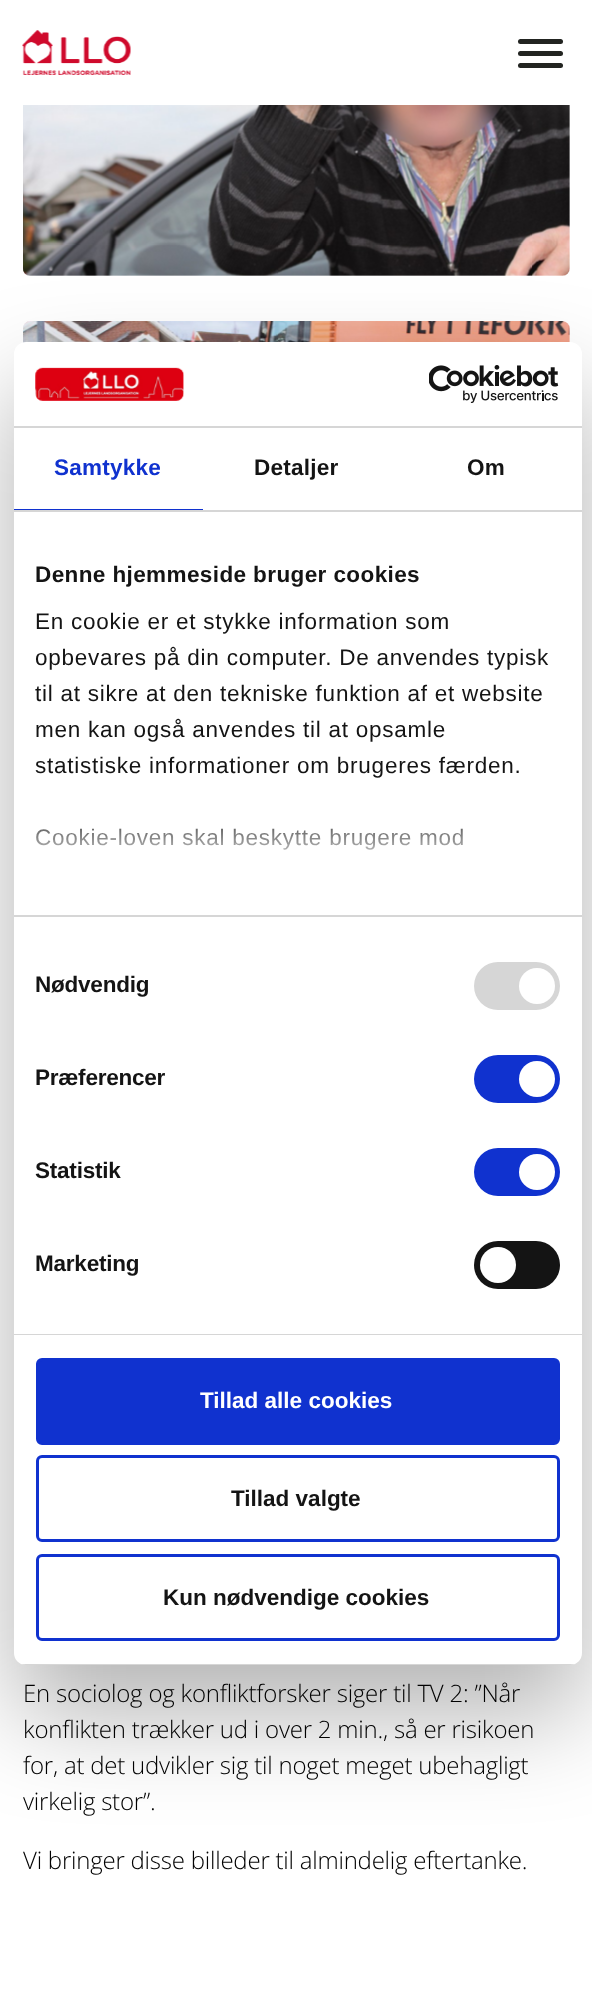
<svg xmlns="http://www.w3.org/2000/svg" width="592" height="2007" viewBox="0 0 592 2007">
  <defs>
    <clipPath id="clip1"><rect x="14" y="342" width="568" height="1323" rx="12"/></clipPath>
    <linearGradient id="g1" gradientUnits="userSpaceOnUse" x1="287" y1="915" x2="287" y2="803"><stop offset="0" stop-color="#fff"/><stop offset="0.5" stop-color="#fff" stop-opacity="0.8"/><stop offset="1" stop-color="#fff" stop-opacity="0"/></linearGradient>
  </defs>
  <rect width="100%" height="100%" fill="#fff"/>
  <image x="23" y="105" width="547" height="171" href="img/4.png"/>
  <image x="23" y="321" width="547" height="22" href="img/5.png"/>
  <rect x="14" y="390" width="568" height="1323" rx="12" fill="#0000004d" filter="blur(51px)"/>
  <rect x="14" y="342" width="568" height="1323" rx="12" fill="#fff"/>
  <path d="M14 426h568v2H14z" fill="#d6d6d6"/>
  <image x="35" y="367" width="149" height="34" href="img/1.png"/>
  <image x="429" y="365" width="130" height="38" href="img/2.png"/>
  <path d="M14 510h568v2H14z" fill="#d6d6d6"/>
  <path d="M14 509h189v1H14z" fill="#1032cf"/>
  <path d="M14 915h568v2H14z" fill="#d6d6d6"/>
  <path d="M14 1334h568v1H14z" fill="#d6d6d6"/>
  <rect x="474" y="962" width="86" height="48" rx="24" fill="#d6d6d6"/>
  <circle cx="537" cy="986" r="18" fill="#fff"/>
  <rect x="474" y="1055" width="86" height="48" rx="24" fill="#1032cf"/>
  <circle cx="537" cy="1079" r="18" fill="#fff"/>
  <rect x="474" y="1148" width="86" height="48" rx="24" fill="#1032cf"/>
  <circle cx="537" cy="1172" r="18" fill="#fff"/>
  <rect x="474" y="1241" width="86" height="48" rx="24" fill="#141414"/>
  <circle cx="498" cy="1265" r="18" fill="#fff"/>
  <g clip-path="url(#clip1)">
    <path d="M14 1664h568v1H14z" fill="#d6d6d6"/>
  </g>
  <rect x="37.5" y="1359.5" width="521" height="84" rx="4.5" fill="#1032cf" stroke="#1032cf" stroke-width="3"/>
  <rect x="37.5" y="1456.5" width="521" height="84" rx="4.5" fill="none" stroke="#1032cf" stroke-width="3"/>
  <rect x="37.5" y="1555.5" width="521" height="84" rx="4.5" fill="none" stroke="#1032cf" stroke-width="3"/>
  <image x="22" y="30" width="109" height="45" href="img/3.png"/>
  <rect x="518" y="51" width="45" height="5" rx="2.5" fill="#222421"/>
  <rect x="518" y="39" width="45" height="5" rx="2.5" fill="#222421"/>
  <rect x="518" y="63" width="45" height="5" rx="2.5" fill="#222421"/>
  <text x="54" y="475" font-family="Liberation Sans" font-size="22.5" font-weight="bold" letter-spacing="0.25" fill="#1032cf">Samtykke</text>
  <g font-family="Liberation Sans" font-size="22.5" font-weight="bold" letter-spacing="0.25" fill="#141414">
    <text x="254" y="475">Detaljer</text>
    <text x="467" y="475">Om</text>
  </g>
  <text x="35" y="582" font-family="Liberation Sans" font-size="22.5" font-weight="bold" letter-spacing="0.4" fill="#141414">Denne hjemmeside bruger cookies</text>
  <g font-family="Liberation Sans" font-size="22.5" letter-spacing="0.75" fill="#141414">
    <text x="35" y="629">En cookie er et stykke information som</text>
    <text x="35" y="665">opbevares på din computer. De anvendes typisk</text>
    <text x="35" y="701">til at sikre at den tekniske funktion af et website</text>
    <text x="35" y="737">men kan også anvendes til at opsamle</text>
    <text x="35" y="773">statistiske informationer om brugeres færden.</text>
    <text x="35" y="845">Cookie-loven skal beskytte brugere mod</text>
  </g>
  <path d="M35 828h428v22H35z" fill="url(#g1)"/>
  <g font-family="Liberation Sans" font-size="22.5" font-weight="bold" letter-spacing="-0.22" fill="#141414">
    <text x="35" y="992">Nødvendig</text>
    <text x="35" y="1085">Præferencer</text>
    <text x="35" y="1178">Statistik</text>
    <text x="35" y="1271">Marketing</text>
  </g>
  <text x="200" y="1408" font-family="Liberation Sans" font-size="22.5" font-weight="bold" fill="#fff">Tillad alle cookies</text>
  <g font-family="Liberation Sans" font-size="22.5" font-weight="bold" fill="#141414">
    <text x="231" y="1506">Tillad valgte</text>
    <text x="163" y="1605">Kun nødvendige cookies</text>
  </g>
  <g font-family="Open Sans" font-size="24" font-weight="300" letter-spacing="-0.22" fill="#010101">
    <text x="23" y="1702">En sociolog og konfliktforsker siger til TV 2: ”Når</text>
    <text x="23" y="1738">konflikten trækker ud i over 2 min., så er risikoen</text>
    <text x="23" y="1774">for, at det udvikler sig til noget meget ubehagligt</text>
    <text x="23" y="1810">virkelig stor”.</text>
    <text x="23" y="1869">Vi bringer disse billeder til almindelig eftertanke.</text>
  </g>
</svg>
